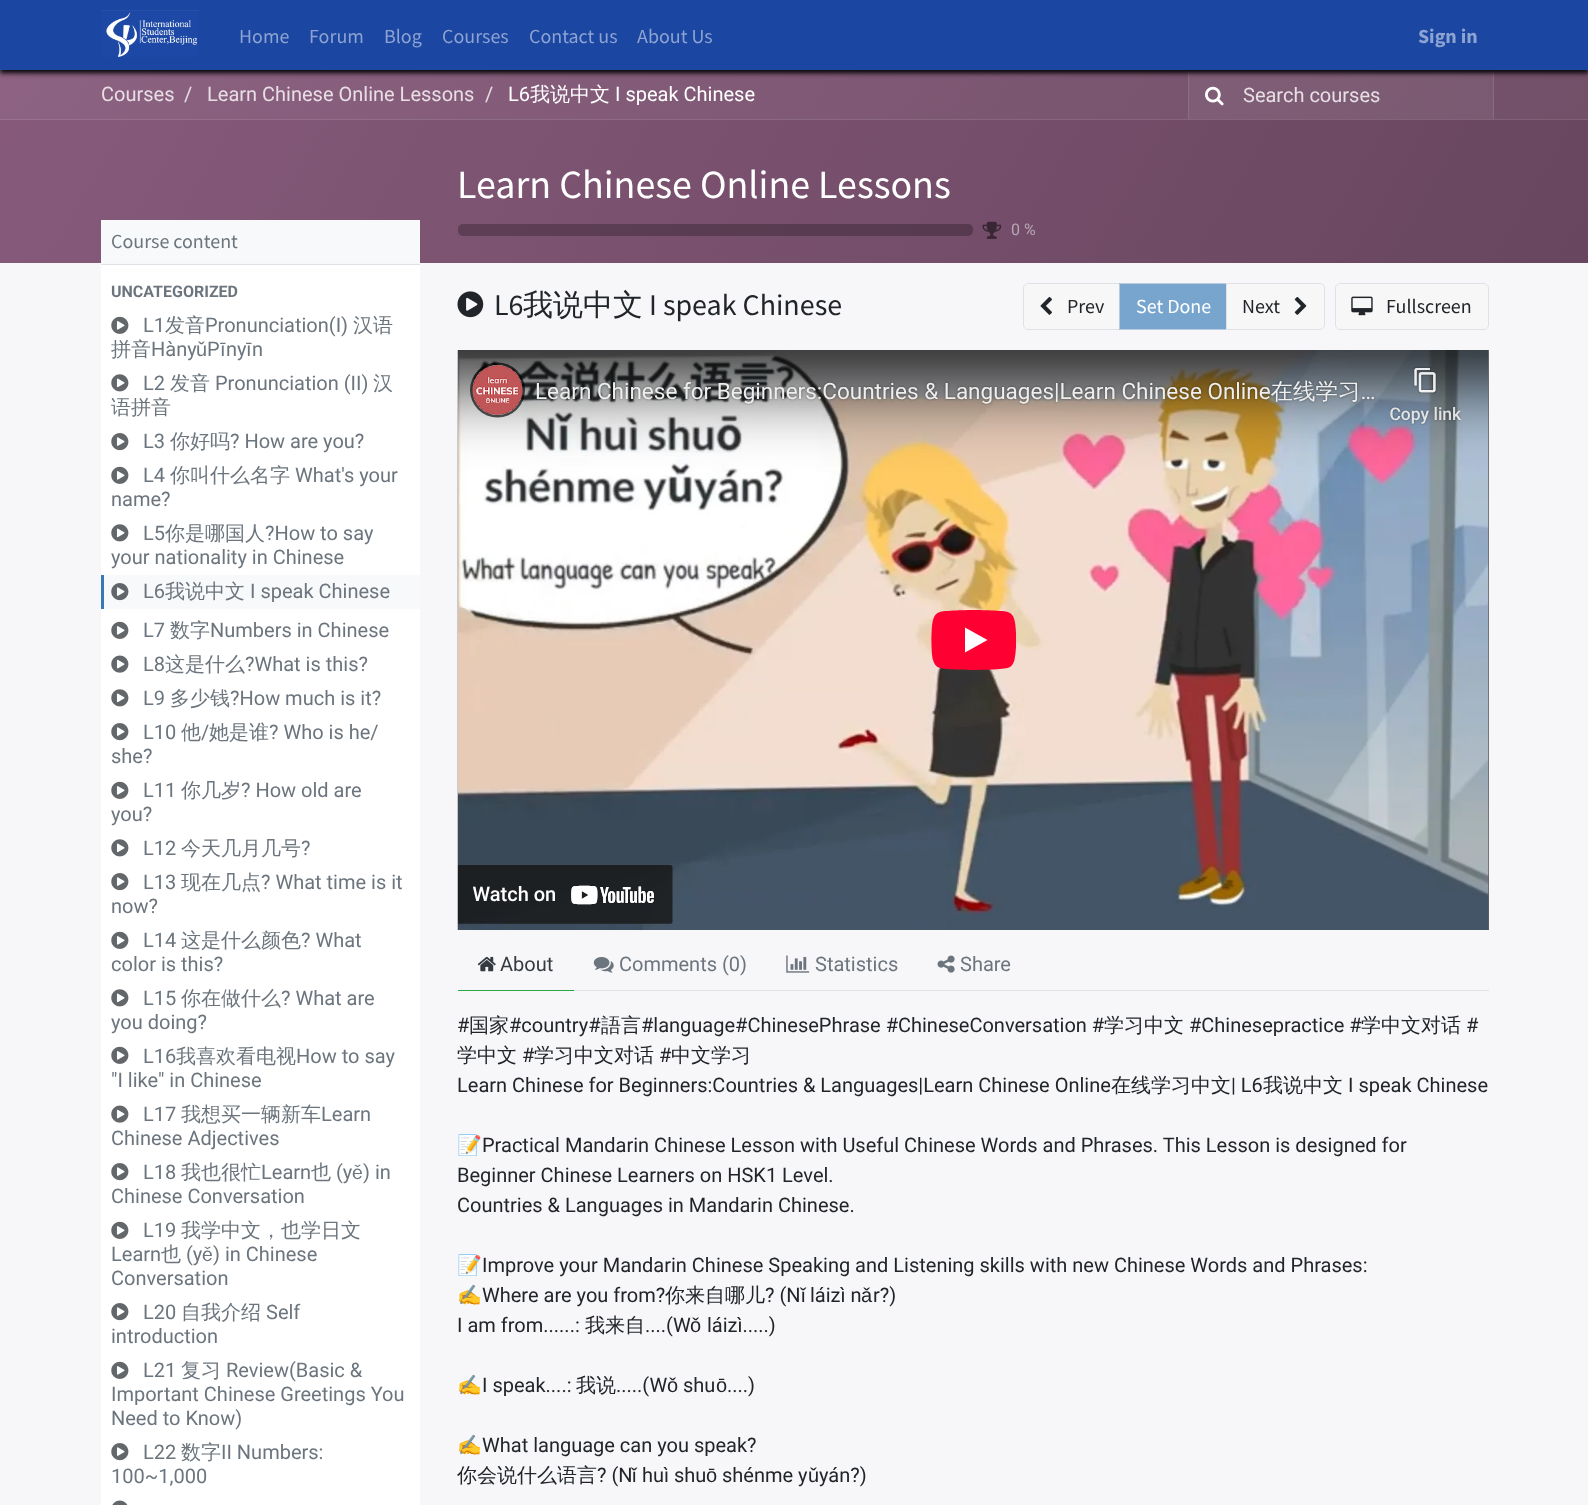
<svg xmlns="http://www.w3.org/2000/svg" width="1588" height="1505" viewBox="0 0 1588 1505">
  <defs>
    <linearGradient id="g1" gradientUnits="userSpaceOnUse" x1="157" y1="-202" x2="1432" y2="534"><stop offset="0" stop-color="#8d6282"/><stop offset="1" stop-color="#704f67"/></linearGradient>
    <linearGradient id="g2" gradientUnits="userSpaceOnUse" x1="157" y1="-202" x2="1432" y2="534"><stop offset="0" stop-color="#936a88"/><stop offset="1" stop-color="#77586f"/></linearGradient>
    <linearGradient id="g3" gradientUnits="userSpaceOnUse" x1="157" y1="-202" x2="1432" y2="534"><stop offset="0" stop-color="#98728f"/><stop offset="1" stop-color="#7e6176"/></linearGradient>
    <linearGradient id="g4" gradientUnits="userSpaceOnUse" x1="157" y1="-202" x2="1432" y2="534"><stop offset="0" stop-color="#875a7b"/><stop offset="1" stop-color="#68465f"/></linearGradient>
  </defs>
  <rect width="100%" height="100%" fill="#f7f7fa"/>
  <path d="M0 71h1588v48H0z" fill="url(#g1)"/>
  <path d="M1189 71h304v48H1189z" fill="url(#g2)"/>
  <path d="M0 70h1588v1H0z" fill="url(#g3)"/>
  <path d="M1493 71h1v48H1493z" fill="#876a80"/>
  <path d="M1188 71h1v48H1188z" fill="#8c6e84"/>
  <path d="M0 3h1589v70H0z" fill="#000" filter="blur(2.5px)"/>
  <path d="M0 0h1588v70H0z" fill="#1b46a2"/>
  <image x="101" y="10" width="98" height="47" href="img/1.png"/>
  <path d="M0 120h1588v143H0z" fill="url(#g4)"/>
  <path d="M0 119h1588v1H0z" fill="url(#g3)"/>
  <image x="1205" y="86" width="19" height="20" href="img/2.png"/>
  <rect x="458" y="224" width="515" height="12" rx="5" fill="#00000040"/>
  <image x="982" y="221" width="20" height="18" href="img/3.png"/>
  <path d="M101 265h319v1240H101z" fill="#fff"/>
  <path d="M101 220h319v43H101z" fill="#f8f9fa"/>
  <path d="M101 264h319v1H101z" fill="#dee2e6"/>
  <image x="111" y="316" width="18" height="18" href="img/4.png"/>
  <image x="111" y="374" width="18" height="18" href="img/5.png"/>
  <image x="111" y="433" width="18" height="18" href="img/6.png"/>
  <image x="111" y="466" width="18" height="18" href="img/4.png"/>
  <image x="111" y="524" width="18" height="18" href="img/5.png"/>
  <path d="M104 575h316v34H104z" fill="#f8f9fa"/>
  <path d="M101 575h3v34H101z" fill="#337ab7"/>
  <image x="111" y="583" width="18" height="18" href="img/7.png"/>
  <image x="111" y="621" width="18" height="18" href="img/4.png"/>
  <image x="111" y="655" width="18" height="18" href="img/8.png"/>
  <image x="111" y="689" width="18" height="18" href="img/5.png"/>
  <image x="111" y="723" width="18" height="18" href="img/6.png"/>
  <image x="111" y="781" width="18" height="18" href="img/4.png"/>
  <image x="111" y="839" width="18" height="18" href="img/5.png"/>
  <image x="111" y="873" width="18" height="18" href="img/6.png"/>
  <image x="111" y="931" width="18" height="18" href="img/4.png"/>
  <image x="111" y="989" width="18" height="18" href="img/5.png"/>
  <image x="111" y="1046" width="18" height="18" href="img/4.png"/>
  <image x="111" y="1105" width="18" height="18" href="img/8.png"/>
  <image x="111" y="1163" width="18" height="18" href="img/6.png"/>
  <image x="111" y="1221" width="18" height="18" href="img/4.png"/>
  <image x="111" y="1303" width="18" height="18" href="img/6.png"/>
  <image x="111" y="1361" width="18" height="18" href="img/4.png"/>
  <image x="111" y="1443" width="18" height="18" href="img/6.png"/>
  <image x="112" y="1500" width="16" height="5" href="img/9.png"/>
  <image x="457" y="291" width="27" height="27" href="img/10.png"/>
  <path d="M1028 283.5H1119.5V329.5H1028C1025.5 329.5 1023.5 327.5 1023.5 325V288C1023.5 285.5 1025.5 283.5 1028 283.5Z" fill="#f7f7f7" stroke="#dee2e6"/>
  <image x="1040" y="296" width="12" height="19" href="img/11.png"/>
  <path d="M1119 283h107v47H1119z" fill="#337ab7a6"/>
  <path d="M1119.5 283.5h108v46H1119.5z" fill="none" stroke="#dee2e6a6"/>
  <path d="M1226.5 283.5H1320C1322.5 283.5 1324.5 285.5 1324.5 288V325C1324.5 327.5 1322.5 329.5 1320 329.5H1226.5Z" fill="#f7f7f7" stroke="#dee2e6"/>
  <image x="1294" y="296" width="13" height="19" href="img/12.png"/>
  <rect x="1335.5" y="283.5" width="153" height="46" rx="4.5" fill="#f7f7f7" stroke="#dee2e6"/>
  <image x="1351" y="296" width="22" height="20" href="img/13.png"/>
  <image x="457" y="350" width="1032" height="580" href="img/14.png"/>
  <path d="M574 990h915v1H574z" fill="#dee2e6"/>
  <path d="M458 990h116v1H458z" fill="#28a745"/>
  <image x="477" y="956" width="19" height="16" href="img/15.png"/>
  <image x="593" y="957" width="21" height="16" href="img/16.png"/>
  <image x="786" y="955" width="24" height="18" href="img/17.png"/>
  <image x="937" y="955" width="18" height="18" href="img/18.png"/>
  <g font-family="Source Sans Pro" font-size="20" fill="#8da3d1">
    <text x="239" y="43">Home</text>
    <text x="309" y="43">Forum</text>
    <text x="384" y="43">Blog</text>
    <text x="442" y="43">Courses</text>
    <text x="529" y="43">Contact us</text>
    <text x="637" y="43">About Us</text>
  </g>
  <text x="1418" y="43" font-family="Source Sans Pro" font-size="20" font-weight="bold" fill="#8da3d1">Sign in</text>
  <g font-family="Roboto" font-size="20" fill="#e8dfe5">
    <text x="101" y="101">Courses</text>
    <text x="184" y="101">/</text>
    <text x="207" y="101">Learn Chinese Online Lessons</text>
    <text x="485" y="101">/</text>
  </g>
  <text x="508" y="101" font-family="Roboto" font-size="20" fill="#fff">L6</text>
  <text x="530" y="101" font-family="WenQuanYi Zen Hei" font-size="20" font-weight="500" fill="#fff">我说中文</text>
  <text x="615" y="101" font-family="Roboto" font-size="20" fill="#fff">I speak Chinese</text>
  <text x="1243" y="102" font-family="Roboto" font-size="20" fill="#e8dfe5">Search courses</text>
  <text x="457" y="198" font-family="Source Sans Pro" font-size="40" fill="#fff">Learn Chinese Online Lessons</text>
  <text x="1011" y="235" font-family="Roboto" font-size="16" fill="#b9a6b4">0 %</text>
  <text x="111" y="248" font-family="Source Sans Pro" font-size="20" fill="#6c757d">Course content</text>
  <text x="111" y="297" font-family="Roboto" font-size="16" font-weight="bold" fill="#6c757d">UNCATEGORIZED</text>
  <text x="143" y="332" font-family="Roboto" font-size="20" fill="#6c757d">L1</text>
  <text x="165" y="332" font-family="WenQuanYi Zen Hei" font-size="20" font-weight="500" fill="#6c757d">发音</text>
  <text x="205" y="332" font-family="Roboto" font-size="20" fill="#6c757d">Pronunciation(I)</text>
  <g font-family="WenQuanYi Zen Hei" font-size="20" font-weight="500" fill="#6c757d">
    <text x="353" y="332">汉语</text>
    <text x="111" y="356">拼音</text>
  </g>
  <text x="151" y="356" font-family="Roboto" font-size="20" fill="#6c757d">Hàny</text>
  <text x="196" y="356" font-family="Liberation Sans" font-size="20" fill="#6c757d">ǔ</text>
  <text x="207" y="356" font-family="Roboto" font-size="20" fill="#6c757d">P</text>
  <text x="220" y="356" font-family="Liberation Sans" font-size="20" fill="#6c757d">ī</text>
  <text x="226" y="356" font-family="Roboto" font-size="20" fill="#6c757d">ny</text>
  <text x="246" y="356" font-family="Liberation Sans" font-size="20" fill="#6c757d">ī</text>
  <g font-family="Roboto" font-size="20" fill="#6c757d">
    <text x="252" y="356">n</text>
    <text x="143" y="390">L2</text>
  </g>
  <text x="170" y="390" font-family="WenQuanYi Zen Hei" font-size="20" font-weight="500" fill="#6c757d">发音</text>
  <text x="215" y="390" font-family="Roboto" font-size="20" fill="#6c757d">Pronunciation (II)</text>
  <g font-family="WenQuanYi Zen Hei" font-size="20" font-weight="500" fill="#6c757d">
    <text x="373" y="390">汉</text>
    <text x="111" y="414">语拼音</text>
  </g>
  <text x="143" y="448" font-family="Roboto" font-size="20" fill="#6c757d">L3</text>
  <text x="170" y="448" font-family="WenQuanYi Zen Hei" font-size="20" font-weight="500" fill="#6c757d">你好吗</text>
  <g font-family="Roboto" font-size="20" fill="#6c757d">
    <text x="230" y="448">? How are you?</text>
    <text x="143" y="482">L4</text>
  </g>
  <text x="170" y="482" font-family="WenQuanYi Zen Hei" font-size="20" font-weight="500" fill="#6c757d">你叫什么名字</text>
  <g font-family="Roboto" font-size="20" fill="#6c757d">
    <text x="295" y="482">What's your</text>
    <text x="111" y="506">name?</text>
    <text x="143" y="540">L5</text>
  </g>
  <text x="165" y="540" font-family="WenQuanYi Zen Hei" font-size="20" font-weight="500" fill="#6c757d">你是哪国人</text>
  <g font-family="Roboto" font-size="20" fill="#6c757d">
    <text x="265" y="540">?How to say</text>
    <text x="111" y="564">your nationality in Chinese</text>
    <text x="143" y="598">L6</text>
  </g>
  <text x="165" y="598" font-family="WenQuanYi Zen Hei" font-size="20" font-weight="500" fill="#6c757d">我说中文</text>
  <g font-family="Roboto" font-size="20" fill="#6c757d">
    <text x="250" y="598">I speak Chinese</text>
    <text x="143" y="637">L7</text>
  </g>
  <text x="170" y="637" font-family="WenQuanYi Zen Hei" font-size="20" font-weight="500" fill="#6c757d">数字</text>
  <g font-family="Roboto" font-size="20" fill="#6c757d">
    <text x="210" y="637">Numbers in Chinese</text>
    <text x="143" y="671">L8</text>
  </g>
  <text x="165" y="671" font-family="WenQuanYi Zen Hei" font-size="20" font-weight="500" fill="#6c757d">这是什么</text>
  <g font-family="Roboto" font-size="20" fill="#6c757d">
    <text x="245" y="671">?What is this?</text>
    <text x="143" y="705">L9</text>
  </g>
  <text x="170" y="705" font-family="WenQuanYi Zen Hei" font-size="20" font-weight="500" fill="#6c757d">多少钱</text>
  <g font-family="Roboto" font-size="20" fill="#6c757d">
    <text x="230" y="705">?How much is it?</text>
    <text x="143" y="739">L10</text>
  </g>
  <text x="181" y="739" font-family="WenQuanYi Zen Hei" font-size="20" font-weight="500" fill="#6c757d">他</text>
  <text x="201" y="739" font-family="Roboto" font-size="20" fill="#6c757d">/</text>
  <text x="209" y="739" font-family="WenQuanYi Zen Hei" font-size="20" font-weight="500" fill="#6c757d">她是谁</text>
  <g font-family="Roboto" font-size="20" fill="#6c757d">
    <text x="269" y="739">? Who is he/</text>
    <text x="111" y="763">she?</text>
    <text x="143" y="797">L11</text>
  </g>
  <text x="181" y="797" font-family="WenQuanYi Zen Hei" font-size="20" font-weight="500" fill="#6c757d">你几岁</text>
  <g font-family="Roboto" font-size="20" fill="#6c757d">
    <text x="241" y="797">? How old are</text>
    <text x="111" y="821">you?</text>
    <text x="143" y="855">L12</text>
  </g>
  <text x="181" y="855" font-family="WenQuanYi Zen Hei" font-size="20" font-weight="500" fill="#6c757d">今天几月几号</text>
  <g font-family="Roboto" font-size="20" fill="#6c757d">
    <text x="301" y="855">?</text>
    <text x="143" y="889">L13</text>
  </g>
  <text x="181" y="889" font-family="WenQuanYi Zen Hei" font-size="20" font-weight="500" fill="#6c757d">现在几点</text>
  <g font-family="Roboto" font-size="20" fill="#6c757d">
    <text x="261" y="889">? What time is it</text>
    <text x="111" y="913">now?</text>
    <text x="143" y="947">L14</text>
  </g>
  <text x="181" y="947" font-family="WenQuanYi Zen Hei" font-size="20" font-weight="500" fill="#6c757d">这是什么颜色</text>
  <g font-family="Roboto" font-size="20" fill="#6c757d">
    <text x="301" y="947">? What</text>
    <text x="111" y="971">color is this?</text>
    <text x="143" y="1005">L15</text>
  </g>
  <text x="181" y="1005" font-family="WenQuanYi Zen Hei" font-size="20" font-weight="500" fill="#6c757d">你在做什么</text>
  <g font-family="Roboto" font-size="20" fill="#6c757d">
    <text x="281" y="1005">? What are</text>
    <text x="111" y="1029">you doing?</text>
    <text x="143" y="1063">L16</text>
  </g>
  <text x="176" y="1063" font-family="WenQuanYi Zen Hei" font-size="20" font-weight="500" fill="#6c757d">我喜欢看电视</text>
  <g font-family="Roboto" font-size="20" fill="#6c757d">
    <text x="296" y="1063">How to say</text>
    <text x="111" y="1087">"I like" in Chinese</text>
    <text x="143" y="1121">L17</text>
  </g>
  <text x="181" y="1121" font-family="WenQuanYi Zen Hei" font-size="20" font-weight="500" fill="#6c757d">我想买一辆新车</text>
  <g font-family="Roboto" font-size="20" fill="#6c757d">
    <text x="321" y="1121">Learn</text>
    <text x="111" y="1145">Chinese Adjectives</text>
    <text x="143" y="1179">L18</text>
  </g>
  <text x="181" y="1179" font-family="WenQuanYi Zen Hei" font-size="20" font-weight="500" fill="#6c757d">我也很忙</text>
  <text x="261" y="1179" font-family="Roboto" font-size="20" fill="#6c757d">Learn</text>
  <text x="311" y="1179" font-family="WenQuanYi Zen Hei" font-size="20" font-weight="500" fill="#6c757d">也</text>
  <text x="336" y="1179" font-family="Roboto" font-size="20" fill="#6c757d">(y</text>
  <text x="352" y="1179" font-family="WenQuanYi Zen Hei" font-size="20" font-weight="500" fill="#6c757d">ě</text>
  <g font-family="Roboto" font-size="20" fill="#6c757d">
    <text x="363" y="1179">) in</text>
    <text x="111" y="1203">Chinese Conversation</text>
    <text x="143" y="1237">L19</text>
  </g>
  <text x="181" y="1237" font-family="WenQuanYi Zen Hei" font-size="20" font-weight="500" fill="#6c757d">我学中文，也学日文</text>
  <text x="111" y="1261" font-family="Roboto" font-size="20" fill="#6c757d">Learn</text>
  <text x="161" y="1261" font-family="WenQuanYi Zen Hei" font-size="20" font-weight="500" fill="#6c757d">也</text>
  <text x="186" y="1261" font-family="Roboto" font-size="20" fill="#6c757d">(y</text>
  <text x="202" y="1261" font-family="WenQuanYi Zen Hei" font-size="20" font-weight="500" fill="#6c757d">ě</text>
  <g font-family="Roboto" font-size="20" fill="#6c757d">
    <text x="213" y="1261">) in Chinese</text>
    <text x="111" y="1285">Conversation</text>
    <text x="143" y="1319">L20</text>
  </g>
  <text x="181" y="1319" font-family="WenQuanYi Zen Hei" font-size="20" font-weight="500" fill="#6c757d">自我介绍</text>
  <g font-family="Roboto" font-size="20" fill="#6c757d">
    <text x="266" y="1319">Self</text>
    <text x="111" y="1343">introduction</text>
    <text x="143" y="1377">L21</text>
  </g>
  <text x="181" y="1377" font-family="WenQuanYi Zen Hei" font-size="20" font-weight="500" fill="#6c757d">复习</text>
  <g font-family="Roboto" font-size="20" fill="#6c757d">
    <text x="226" y="1377">Review(Basic &amp;</text>
    <text x="111" y="1401">Important Chinese Greetings You</text>
    <text x="111" y="1425">Need to Know)</text>
    <text x="143" y="1459">L22</text>
  </g>
  <text x="181" y="1459" font-family="WenQuanYi Zen Hei" font-size="20" font-weight="500" fill="#6c757d">数字</text>
  <g font-family="Roboto" font-size="20" fill="#6c757d">
    <text x="221" y="1459">II Numbers:</text>
    <text x="111" y="1483">100~1,000</text>
  </g>
  <text x="494" y="315" font-family="Source Sans Pro" font-size="30" fill="#212529">L6</text>
  <text x="523" y="315" font-family="WenQuanYi Zen Hei" font-size="30" font-weight="500" fill="#212529">我说中文</text>
  <text x="649" y="315" font-family="Source Sans Pro" font-size="30" fill="#212529">I speak Chinese</text>
  <text x="1067" y="313" font-family="Source Sans Pro" font-size="20" fill="#212529">Prev</text>
  <text x="1136" y="313" font-family="Source Sans Pro" font-size="20" fill="#fff">Set Done</text>
  <g font-family="Source Sans Pro" font-size="20" fill="#212529">
    <text x="1242" y="313">Next</text>
    <text x="1386" y="313">Fullscreen</text>
  </g>
  <text x="500" y="971" font-family="Roboto" font-size="20" fill="#343a40">About</text>
  <g font-family="Roboto" font-size="20" fill="#6c757d">
    <text x="619" y="971">Comments (0)</text>
    <text x="815" y="971">Statistics</text>
    <text x="960" y="971">Share</text>
  </g>
  <text x="457" y="1032" font-family="Roboto" font-size="20" fill="#212529">#</text>
  <text x="469" y="1032" font-family="WenQuanYi Zen Hei" font-size="20" font-weight="500" fill="#212529">国家</text>
  <text x="509" y="1032" font-family="Roboto" font-size="20" fill="#212529">#country#</text>
  <text x="601" y="1032" font-family="WenQuanYi Zen Hei" font-size="20" font-weight="500" fill="#212529">語言</text>
  <text x="641" y="1032" font-family="Roboto" font-size="20" fill="#212529">#language#ChinesePhrase #ChineseConversation #</text>
  <text x="1104" y="1032" font-family="WenQuanYi Zen Hei" font-size="20" font-weight="500" fill="#212529">学习中文</text>
  <text x="1189" y="1032" font-family="Roboto" font-size="20" fill="#212529">#Chinesepractice #</text>
  <text x="1361" y="1032" font-family="WenQuanYi Zen Hei" font-size="20" font-weight="500" fill="#212529">学中文对话</text>
  <text x="1466" y="1032" font-family="Roboto" font-size="20" fill="#212529">#</text>
  <text x="457" y="1062" font-family="WenQuanYi Zen Hei" font-size="20" font-weight="500" fill="#212529">学中文</text>
  <text x="522" y="1062" font-family="Roboto" font-size="20" fill="#212529">#</text>
  <text x="534" y="1062" font-family="WenQuanYi Zen Hei" font-size="20" font-weight="500" fill="#212529">学习中文对话</text>
  <text x="659" y="1062" font-family="Roboto" font-size="20" fill="#212529">#</text>
  <text x="671" y="1062" font-family="WenQuanYi Zen Hei" font-size="20" font-weight="500" fill="#212529">中文学习</text>
  <text x="457" y="1092" font-family="Roboto" font-size="20" fill="#212529">Learn Chinese for Beginners:Countries &amp; Languages|Learn Chinese Online</text>
  <text x="1111" y="1092" font-family="WenQuanYi Zen Hei" font-size="20" font-weight="500" fill="#212529">在线学习中文</text>
  <text x="1231" y="1092" font-family="Roboto" font-size="20" fill="#212529">| L6</text>
  <text x="1263" y="1092" font-family="WenQuanYi Zen Hei" font-size="20" font-weight="500" fill="#212529">我说中文</text>
  <text x="1348" y="1092" font-family="Roboto" font-size="20" fill="#212529">I speak Chinese</text>
  <text x="457" y="1152" font-family="Noto Color Emoji" font-size="20" fill="#212529">📝</text>
  <g font-family="Roboto" font-size="20" fill="#212529">
    <text x="482" y="1152">Practical Mandarin Chinese Lesson with Useful Chinese Words and Phrases. This Lesson is designed for</text>
    <text x="457" y="1182">Beginner Chinese Learners on HSK1 Level.</text>
    <text x="457" y="1212">Countries &amp; Languages in Mandarin Chinese.</text>
  </g>
  <text x="457" y="1272" font-family="Noto Color Emoji" font-size="20" fill="#212529">📝</text>
  <text x="482" y="1272" font-family="Roboto" font-size="20" fill="#212529">Improve your Mandarin Chinese Speaking and Listening skills with new Chinese Words and Phrases:</text>
  <text x="457" y="1302" font-family="Noto Color Emoji" font-size="20" fill="#212529">✍</text>
  <text x="482" y="1302" font-family="Roboto" font-size="20" fill="#212529">Where are you from?</text>
  <text x="665" y="1302" font-family="WenQuanYi Zen Hei" font-size="20" font-weight="500" fill="#212529">你来自哪儿</text>
  <text x="765" y="1302" font-family="Roboto" font-size="20" fill="#212529">? (N</text>
  <text x="801" y="1302" font-family="Liberation Sans" font-size="20" fill="#212529">ǐ</text>
  <text x="810" y="1302" font-family="Roboto" font-size="20" fill="#212529">láizì n</text>
  <text x="861" y="1302" font-family="Liberation Sans" font-size="20" fill="#212529">ǎ</text>
  <g font-family="Roboto" font-size="20" fill="#212529">
    <text x="873" y="1302">r?)</text>
    <text x="457" y="1332">I am from......:</text>
  </g>
  <text x="585" y="1332" font-family="WenQuanYi Zen Hei" font-size="20" font-weight="500" fill="#212529">我来自</text>
  <text x="645" y="1332" font-family="Roboto" font-size="20" fill="#212529">....(W</text>
  <text x="690" y="1332" font-family="Liberation Sans" font-size="20" fill="#212529">ǒ</text>
  <text x="707" y="1332" font-family="Roboto" font-size="20" fill="#212529">láizì.....)</text>
  <text x="457" y="1392" font-family="Noto Color Emoji" font-size="20" fill="#212529">✍</text>
  <text x="482" y="1392" font-family="Roboto" font-size="20" fill="#212529">I speak....:</text>
  <text x="576" y="1392" font-family="WenQuanYi Zen Hei" font-size="20" font-weight="500" fill="#212529">我说</text>
  <text x="616" y="1392" font-family="Roboto" font-size="20" fill="#212529">.....(W</text>
  <text x="667" y="1392" font-family="Liberation Sans" font-size="20" fill="#212529">ǒ</text>
  <text x="683" y="1392" font-family="Roboto" font-size="20" fill="#212529">shu</text>
  <text x="716" y="1392" font-family="Liberation Sans" font-size="20" fill="#212529">ō</text>
  <text x="727" y="1392" font-family="Roboto" font-size="20" fill="#212529">....)</text>
  <text x="457" y="1452" font-family="Noto Color Emoji" font-size="20" fill="#212529">✍</text>
  <text x="482" y="1452" font-family="Roboto" font-size="20" fill="#212529">What language can you speak?</text>
  <text x="457" y="1482" font-family="WenQuanYi Zen Hei" font-size="20" font-weight="500" fill="#212529">你会说什么语言</text>
  <text x="597" y="1482" font-family="Roboto" font-size="20" fill="#212529">? (N</text>
  <text x="632" y="1482" font-family="Liberation Sans" font-size="20" fill="#212529">ǐ</text>
  <text x="642" y="1482" font-family="Roboto" font-size="20" fill="#212529">huì shu</text>
  <text x="706" y="1482" font-family="Liberation Sans" font-size="20" fill="#212529">ō</text>
  <text x="722" y="1482" font-family="Roboto" font-size="20" fill="#212529">shénme y</text>
  <text x="808" y="1482" font-family="Liberation Sans" font-size="20" fill="#212529">ǔ</text>
  <text x="819" y="1482" font-family="Roboto" font-size="20" fill="#212529">yán?)</text>
</svg>
